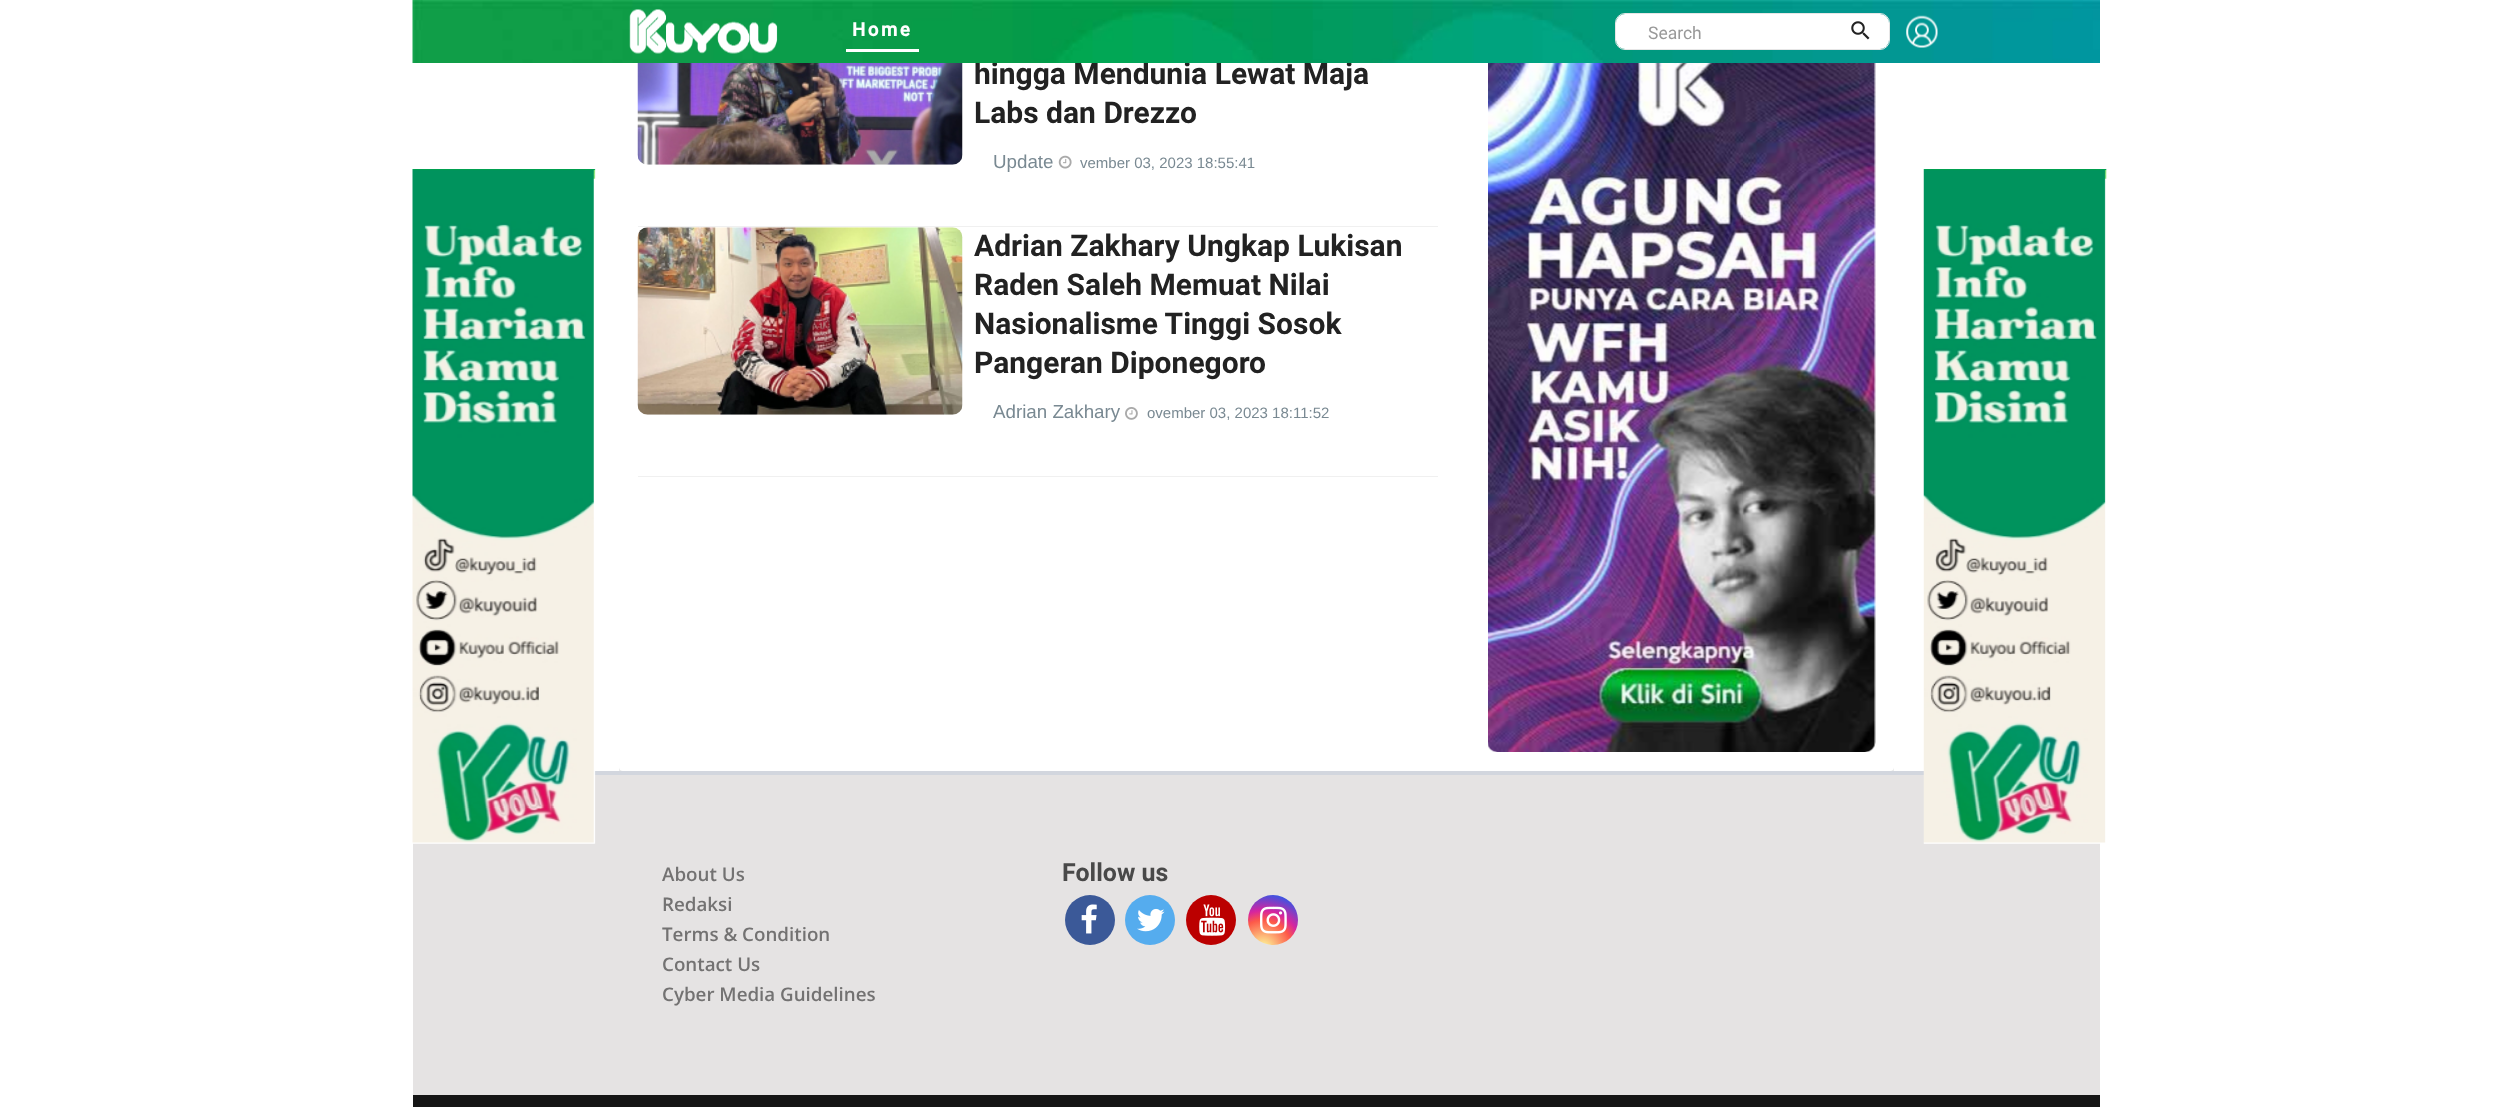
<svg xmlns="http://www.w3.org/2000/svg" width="2511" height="1107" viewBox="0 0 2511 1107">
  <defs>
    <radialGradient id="g1" gradientUnits="userSpaceOnUse" cx="1263" cy="949" r="64"><stop offset="0" stop-color="#fdf497"/><stop offset="0.05" stop-color="#fdf497"/><stop offset="0.45" stop-color="#fd5949"/><stop offset="0.6" stop-color="#d6249f"/><stop offset="0.9" stop-color="#285aeb"/></radialGradient>
  </defs>
  <rect width="100%" height="100%" fill="#fff"/>
  <rect x="619" y="-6" width="1275" height="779" rx="4" fill="#0000001a" filter="blur(0.5px)"/>
  <path d="M594 771h1330v4H594z" fill="#d2d6de"/>
  <path d="M413 775h1687v320H413z" fill="#e5e3e3"/>
  <image x="412" y="169" width="184" height="675" href="img/5.png"/>
  <rect x="619" y="-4" width="1275" height="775" rx="4" fill="#fff"/>
  <path d="M638 226h800v1H638z" fill="#f0f0f0"/>
  <image x="637" y="63" width="326" height="102" href="img/6.png"/>
  <image x="1058" y="155" width="14" height="14" href="img/7.png"/>
  <path d="M638 476h800v1H638z" fill="#f0f0f0"/>
  <image x="637" y="227" width="326" height="188" href="img/8.png"/>
  <image x="1125" y="407" width="13" height="13" href="img/9.png"/>
  <image x="1488" y="63" width="388" height="689" href="img/10.png"/>
  <image x="1923" y="169" width="184" height="675" href="img/11.png"/>
  <circle cx="1090" cy="920" r="25" fill="#3b5998"/>
  <image x="1081" y="904" width="16" height="30" href="img/12.png"/>
  <circle cx="1150" cy="920" r="25" fill="#55acee"/>
  <image x="1137" y="908" width="28" height="24" href="img/13.png"/>
  <circle cx="1211" cy="920" r="25" fill="#b00"/>
  <image x="1199" y="904" width="27" height="32" href="img/14.png"/>
  <circle cx="1273" cy="920" r="25" fill="url(#g1)"/>
  <image x="1260" y="906" width="27" height="28" href="img/15.png"/>
  <path d="M413 1095h1687v12H413z" fill="#151515"/>
  <text x="974" y="84" font-family="Roboto" font-size="30" font-weight="bold" fill="#222">hingga Mendunia Lewat Maja</text>
  <image x="412" y="0" width="1688" height="63" href="img/1.png"/>
  <rect x="1615.5" y="13.5" width="274" height="36" rx="9.5" fill="none" stroke="#e6e6e6"/>
  <rect x="1616" y="14" width="273" height="35" rx="9" fill="#fff"/>
  <image x="1851" y="21" width="19" height="19" href="img/3.png"/>
  <text x="1648" y="39" font-family="Roboto" font-size="17.5" fill="#999">Search</text>
  <image x="1906" y="15" width="32" height="33" href="img/4.png"/>
  <text x="852" y="36" font-family="'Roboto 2'" font-size="18.75" font-weight="bold" letter-spacing="2.5" fill="#fff">Home</text>
  <path d="M846 49h73v3H846z" fill="#fff"/>
  <image x="629" y="9" width="149" height="45" href="img/2.png"/>
  <text x="974" y="123" font-family="Roboto" font-size="30" font-weight="bold" fill="#222">Labs dan Drezzo</text>
  <text x="993" y="168" font-family="Liberation Sans" font-size="18.75" fill="#798992">Update</text>
  <text x="1080" y="168" font-family="Liberation Sans" font-size="15" fill="#798992">vember 03, 2023 18:55:41</text>
  <g font-family="Roboto" font-size="30" font-weight="bold" fill="#222">
    <text x="974" y="256">Adrian Zakhary Ungkap Lukisan</text>
    <text x="974" y="295">Raden Saleh Memuat Nilai</text>
    <text x="974" y="334">Nasionalisme Tinggi Sosok</text>
    <text x="974" y="373">Pangeran Diponegoro</text>
  </g>
  <text x="993" y="418" font-family="Liberation Sans" font-size="18.75" fill="#798992">Adrian Zakhary</text>
  <text x="1147" y="418" font-family="Liberation Sans" font-size="15" fill="#798992">ovember 03, 2023 18:11:52</text>
  <g font-family="Open Sans" font-size="18.75" font-weight="600" fill="#737272">
    <text x="662" y="881">About Us</text>
    <text x="662" y="911">Redaksi</text>
    <text x="662" y="941">Terms &amp; Condition</text>
    <text x="662" y="971">Contact Us</text>
    <text x="662" y="1001">Cyber Media Guidelines</text>
  </g>
  <text x="1062" y="881" font-family="Roboto" font-size="25" font-weight="bold" fill="#494949">Follow us</text>
</svg>
